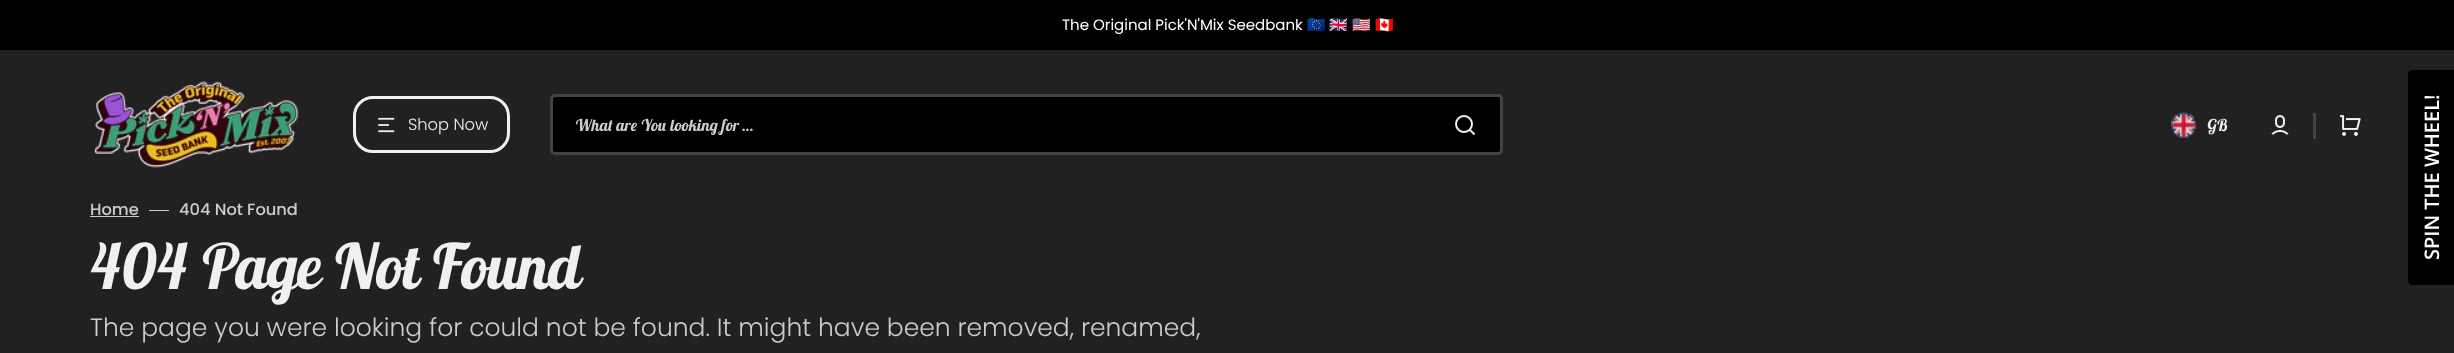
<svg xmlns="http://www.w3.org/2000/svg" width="2454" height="353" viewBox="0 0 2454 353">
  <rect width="100%" height="100%" fill="#212121"/>
  <path d="M0 0h2454v50H0z" fill="#000"/>
  <image x="94" y="81" width="205" height="87" href="img/1.png"/>
  <rect x="354.5" y="97.5" width="154" height="54" rx="18.5" fill="none" stroke="#f0f0f0" stroke-width="3"/>
  <image x="378" y="117" width="17" height="16" href="img/2.png"/>
  <rect x="551.5" y="95.5" width="950" height="58" rx="3.5" fill="#000" stroke="#434343" stroke-width="3"/>
  <image x="1455" y="115" width="21" height="21" href="img/3.png"/>
  <image x="2171" y="112" width="26" height="26" href="img/4.png"/>
  <circle cx="2183.5" cy="125.5" r="12" fill="none" stroke="#434343"/>
  <image x="2271" y="115" width="18" height="20" href="img/5.png"/>
  <path d="M2313 113h3v26H2313z" fill="#434343"/>
  <image x="2340" y="115" width="21" height="21" href="img/6.png"/>
  <path d="M2412 70H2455V285H2412C2410 285 2408 283 2408 281V74C2408 72 2410 70 2412 70Z" fill="#000"/>
  <path d="M90 216h49v1H90z" fill="#ccc"/>
  <path d="M149 210h20v1H149z" fill="#ccc"/>
  <text x="1062" y="30" font-family="Poppins" font-size="15" fill="#fff">The Original Pick'N'Mix Seedbank</text>
  <g font-family="Noto Color Emoji" font-size="15" fill="#fff">
    <text x="1307" y="30">🇪🇺</text>
    <text x="1329" y="30">🇬🇧</text>
    <text x="1352" y="30">🇺🇲</text>
    <text x="1375" y="30">🇨🇦</text>
  </g>
  <text x="408" y="130" font-family="Poppins" font-size="16.25" font-weight="300" fill="#f0f0f0">Shop Now</text>
  <text x="575" y="131" font-family="Lobster Two" font-size="16.25" font-weight="bold" font-style="italic" fill="#ccc">What are You looking for ...</text>
  <text x="2207" y="131" font-family="Lobster Two" font-size="16.25" font-weight="bold" font-style="italic" fill="#f0f0f0">GB</text>
  <text x="2439" y="260" transform="rotate(-90 2439 260)" font-family="Open Sans" font-size="20" font-weight="600" fill="#fff">SPIN THE WHEEL!</text>
  <g font-family="Poppins" font-size="16.25" font-weight="500" fill="#ccc">
    <text x="90" y="215">Home</text>
    <text x="179" y="215">404 Not Found</text>
  </g>
  <text x="90" y="289" font-family="Lobster Two" font-size="62.5" font-weight="bold" font-style="italic" letter-spacing="-1.25" fill="#f0f0f0">404 Page Not Found</text>
  <text x="90" y="336" font-family="Poppins" font-size="25" font-weight="300" fill="#ccc">The page you were looking for could not be found. It might have been removed, renamed,</text>
</svg>
